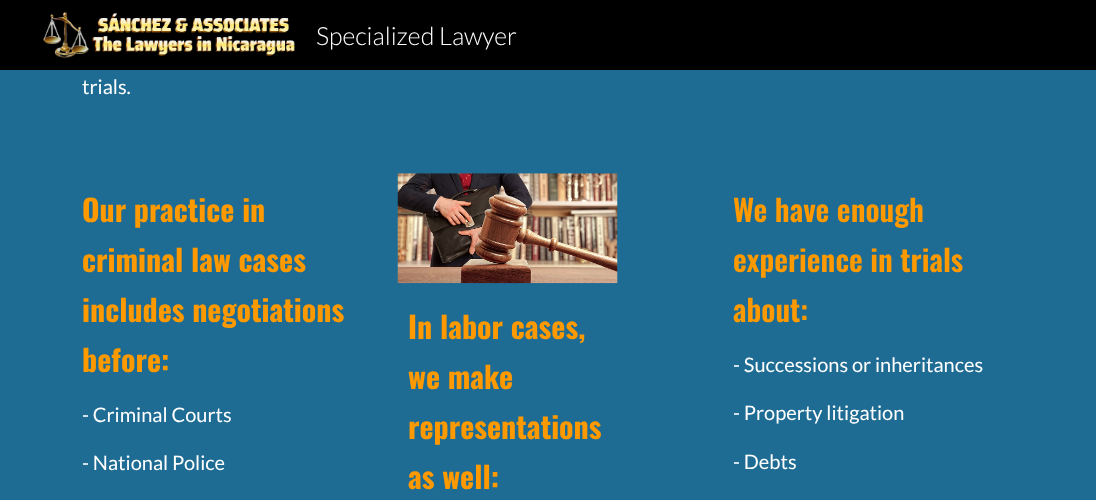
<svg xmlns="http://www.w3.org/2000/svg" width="1096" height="500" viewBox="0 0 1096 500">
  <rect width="100%" height="100%" fill="#1e6c93"/>
  <path d="M0 0h1096v70H0z" fill="#000"/>
  <image x="43" y="12" width="252" height="46" href="img/1.png"/>
  <image x="397" y="173" width="221" height="111" href="img/2.png"/>
  <text x="316" y="45" font-family="Lato" font-size="25" font-weight="300" fill="#fff">Specialized Lawyer</text>
  <text x="82" y="94" font-family="Lato" font-size="20" fill="#fff">trials.</text>
  <g font-family="Oswald" font-size="30" font-weight="bold" fill="#f90">
    <text x="82" y="222">Our practice in</text>
    <text x="82" y="272">criminal law cases</text>
    <text x="82" y="322">includes negotiations</text>
    <text x="82" y="372">before:</text>
  </g>
  <g font-family="Lato" font-size="20" fill="#fff">
    <text x="82" y="422">- Criminal Courts</text>
    <text x="82" y="470">- National Police</text>
  </g>
  <g font-family="Oswald" font-size="30" font-weight="bold" fill="#f90">
    <text x="408" y="339">In labor cases,</text>
    <text x="408" y="389">we make</text>
    <text x="408" y="439">representations</text>
    <text x="408" y="489">as well:</text>
  </g>
  <g font-family="Oswald" font-size="30" font-weight="600" fill="#f90">
    <text x="733" y="222">We have enough</text>
    <text x="733" y="272">experience in trials</text>
    <text x="733" y="322">about:</text>
  </g>
  <g font-family="Lato" font-size="20" fill="#fff">
    <text x="733" y="372">- Successions or inheritances</text>
    <text x="733" y="420">- Property litigation</text>
    <text x="733" y="469">- Debts</text>
  </g>
</svg>
